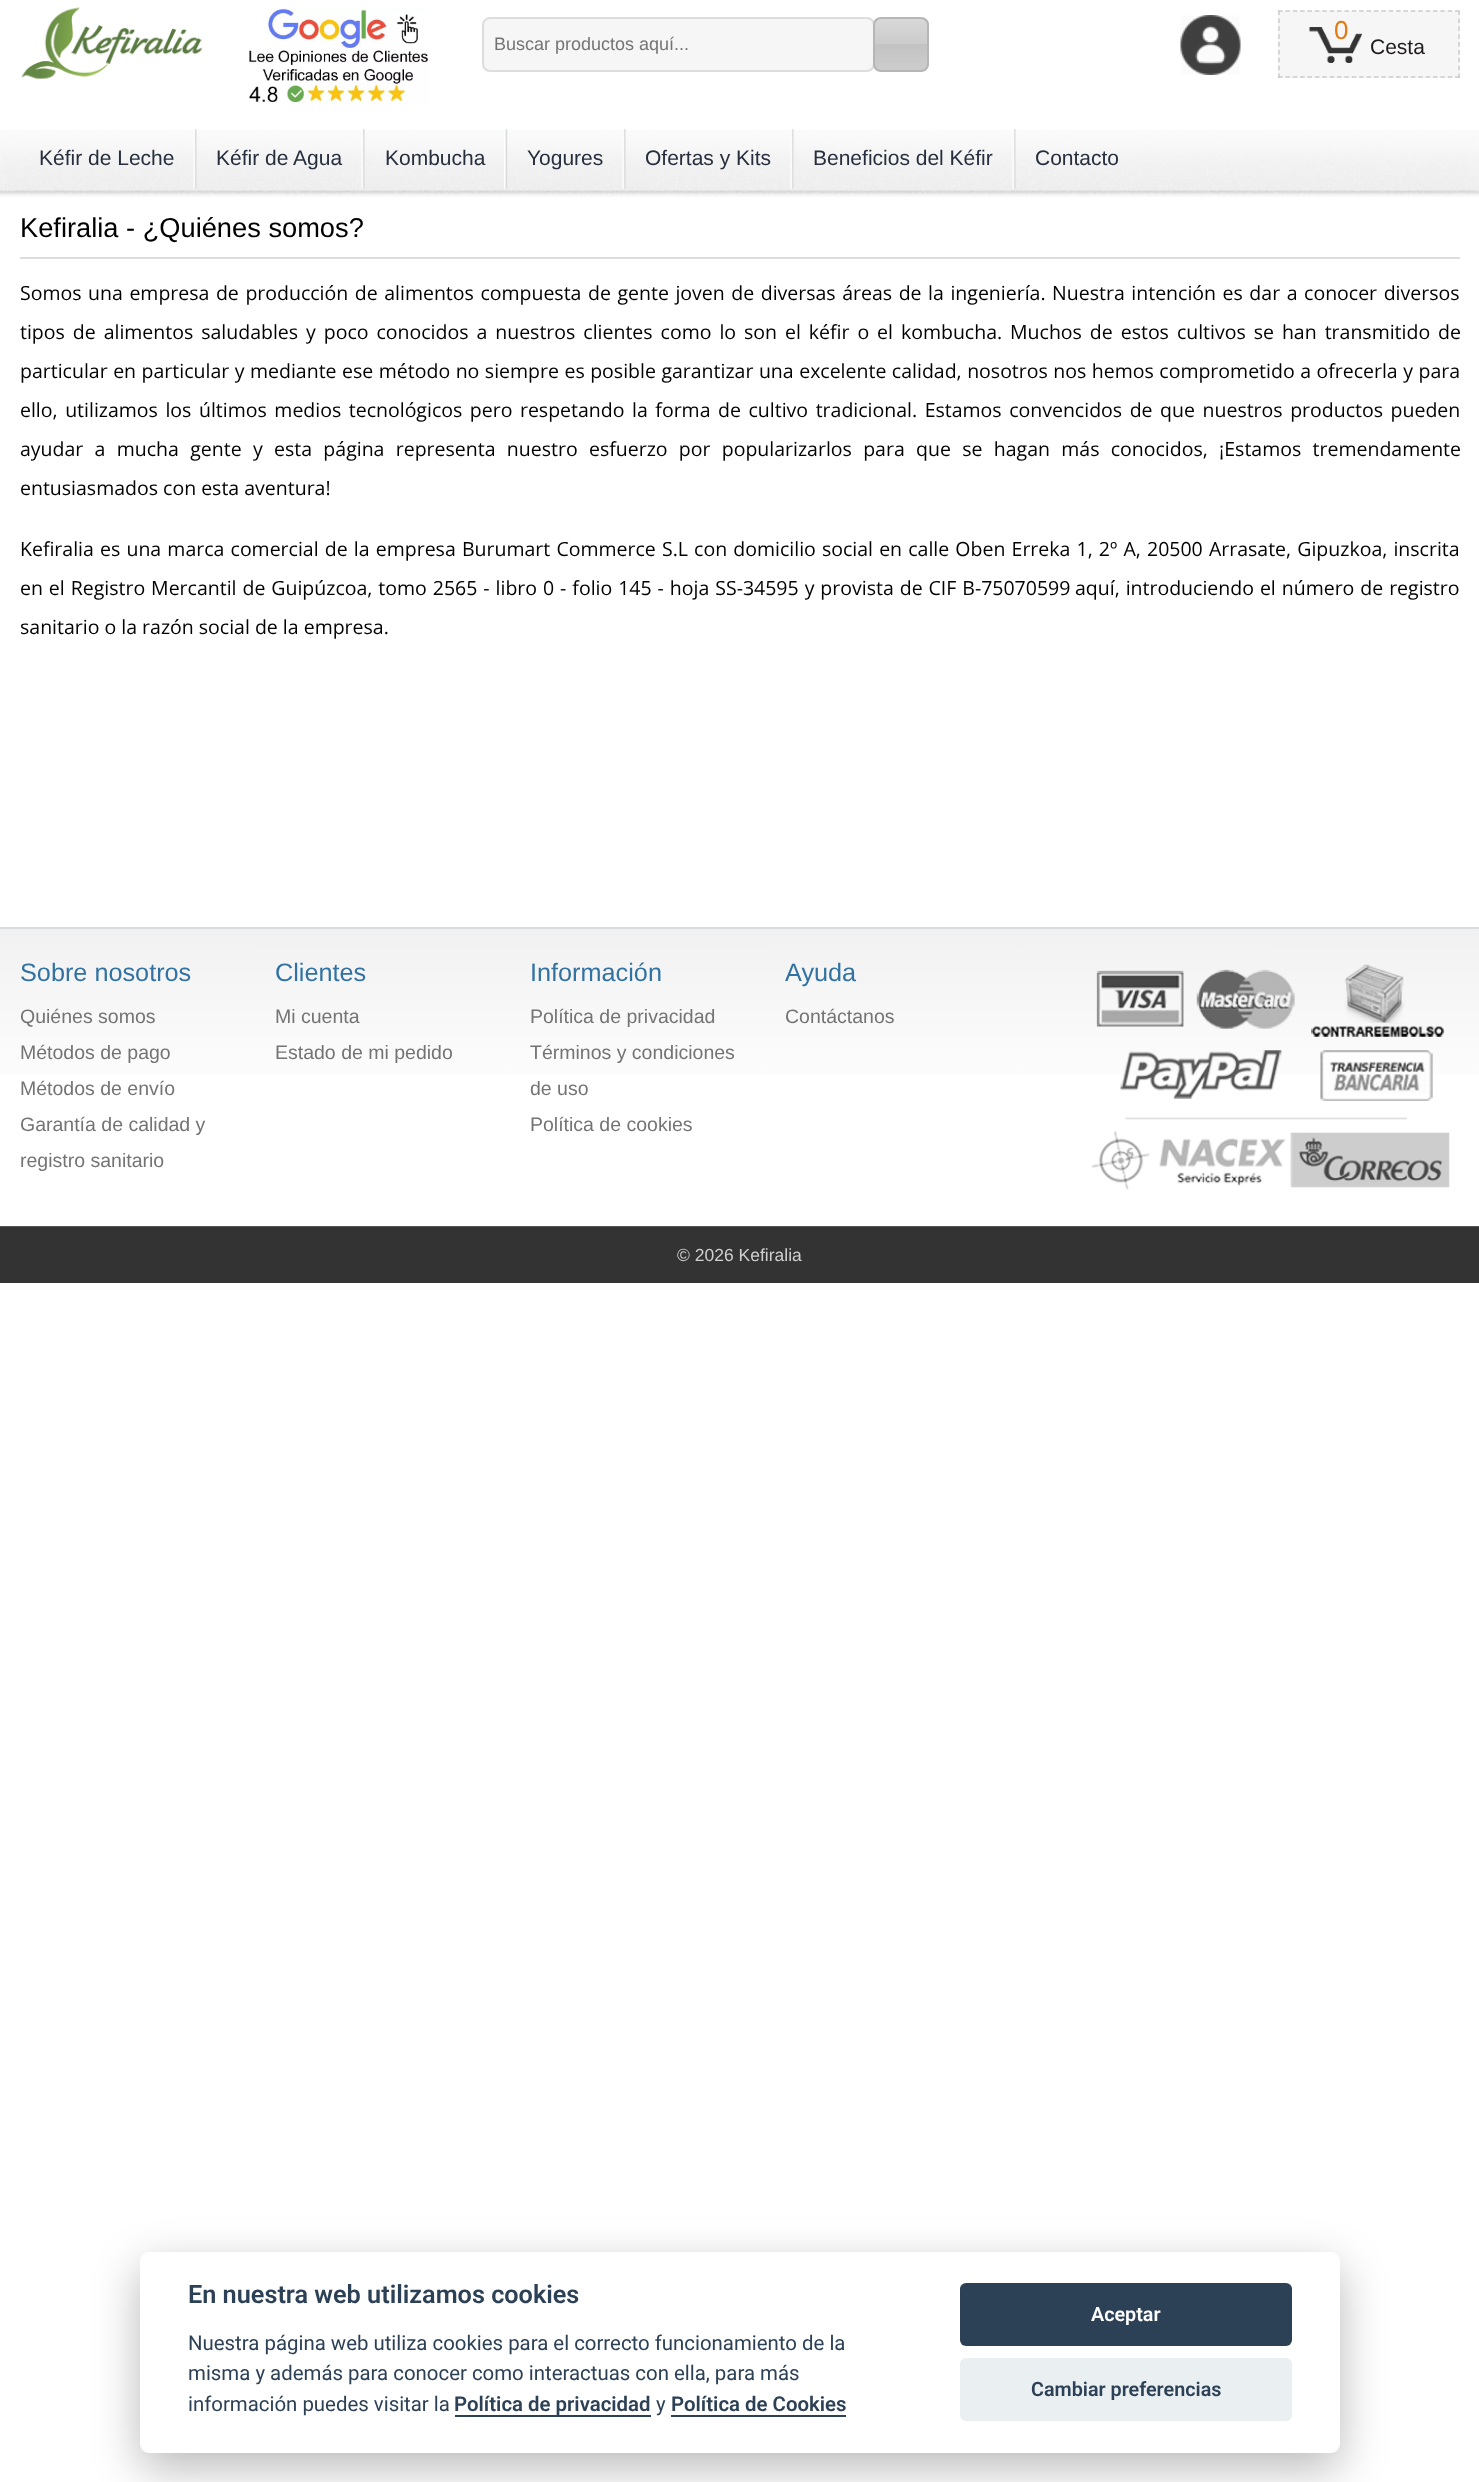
<svg xmlns="http://www.w3.org/2000/svg" width="1479" height="2482" viewBox="0 0 1479 2482">
  <defs>
    <clipPath id="clip1"><rect x="873" y="17" width="56" height="55" rx="8"/></clipPath>
    <linearGradient id="g1" gradientUnits="userSpaceOnUse" x1="901" y1="18" x2="901" y2="71"><stop offset="0" stop-color="#d9d9d9"/><stop offset="0.5" stop-color="#cbcbcb"/><stop offset="0.5" stop-color="#c3c3c3"/><stop offset="1" stop-color="#cdcdcd"/></linearGradient>
    <linearGradient id="g2" gradientUnits="userSpaceOnUse" x1="740" y1="929" x2="740" y2="1226"><stop offset="0" stop-color="#f1f1f1"/><stop offset="0.6" stop-color="#fff"/></linearGradient>
  </defs>
  <rect width="100%" height="100%" fill="#fff"/>
  <image x="21" y="7" width="182" height="72" href="img/1.png"/>
  <image x="249" y="7" width="180" height="97" href="img/2.png"/>
  <rect x="483" y="18" width="391" height="53" rx="7" fill="#f6f6f6" stroke="#ddd" stroke-width="2"/>
  <g clip-path="url(#clip1)">
    <path d="M873 18h56v53H873z" fill="url(#g1)"/>
  </g>
  <rect x="874" y="18" width="54" height="53" rx="7" fill="none" stroke="#b6b6b6" stroke-width="2"/>
  <image x="1180" y="15" width="61" height="60" href="img/3.png"/>
  <path d="M1278 11h182v67H1278z" fill="#f6f6f6"/>
  <path d="M1278 11H1459.5" fill="none" stroke="#cbcbcb" stroke-width="1.5" stroke-dasharray="4.5 2.88"/>
  <path d="M1459 10.5V78" fill="none" stroke="#cbcbcb" stroke-width="1.5" stroke-dasharray="4.5 3.38"/>
  <path d="M1278 77H1459.5" fill="none" stroke="#cbcbcb" stroke-width="1.5" stroke-dasharray="4.5 2.88"/>
  <path d="M1279 10.5V78" fill="none" stroke="#cbcbcb" stroke-width="1.5" stroke-dasharray="4.5 3.38"/>
  <image x="1309" y="27" width="53" height="36" href="img/4.png"/>
  <image x="0" y="130" width="1479" height="67" href="img/5.png"/>
  <image x="193" y="128" width="4" height="61" href="img/6.png"/>
  <image x="361" y="128" width="4" height="61" href="img/7.png"/>
  <image x="504" y="128" width="4" height="61" href="img/8.png"/>
  <image x="622" y="128" width="4" height="61" href="img/9.png"/>
  <image x="790" y="128" width="4" height="61" href="img/10.png"/>
  <image x="1012" y="128" width="4" height="61" href="img/11.png"/>
  <path d="M0 927h1479v2H0z" fill="#dadcdd"/>
  <path d="M20 257h1440v2H20z" fill="#ddd"/>
  <path d="M0 929h1479v146H0z" fill="url(#g2)"/>
  <path d="M0 1226h1479v1H0z" fill="#555"/>
  <image x="1091" y="964" width="359" height="226" href="img/12.png"/>
  <path d="M0 1227h1479v56H0z" fill="#333"/>
  <rect x="140" y="2267" width="1200" height="201" rx="9" fill="#02020347" filter="blur(22.5px)"/>
  <rect x="140" y="2252" width="1200" height="201" rx="9" fill="#fff"/>
  <path d="M455 2415h196v2H455z" fill="#2d4156"/>
  <path d="M671 2415h175v2H671z" fill="#2d4156"/>
  <rect x="960" y="2283" width="332" height="63" rx="6" fill="#2d4156"/>
  <rect x="960" y="2358" width="332" height="63" rx="6" fill="#eaeff2"/>
  <text x="494" y="50" font-family="Liberation Sans" font-size="18" fill="#747474">Buscar productos aquí...</text>
  <text x="1334" y="39" font-family="Liberation Sans" font-size="26" fill="#e47911">0</text>
  <text x="1370" y="54" font-family="Liberation Sans" font-size="21" fill="#1f1c1c">Cesta</text>
  <g font-family="Liberation Sans" font-size="21" fill="#272e3d">
    <text x="39" y="165">Kéfir de Leche</text>
    <text x="216" y="165">Kéfir de Agua</text>
    <text x="385" y="165">Kombucha</text>
    <text x="527" y="165">Yogures</text>
    <text x="645" y="165">Ofertas y Kits</text>
    <text x="813" y="165">Beneficios del Kéfir</text>
    <text x="1035" y="165">Contacto</text>
  </g>
  <text x="20" y="237" font-family="Liberation Sans" font-size="27.25" fill="#000">Kefiralia - ¿Quiénes somos?</text>
  <g font-family="Open Sans" font-size="19.5" fill="#000">
    <text x="20" y="300" word-spacing="1.5">Somos una empresa de producción de alimentos compuesta de gente joven de diversas áreas de la ingeniería. Nuestra intención es dar a conocer diversos</text>
    <text x="20" y="339" word-spacing="2.9">tipos de alimentos saludables y poco conocidos a nuestros clientes como lo son el kéfir o el kombucha. Muchos de estos cultivos se han transmitido de</text>
    <text x="20" y="378" word-spacing="0.45">particular en particular y mediante ese método no siempre es posible garantizar una excelente calidad, nosotros nos hemos comprometido a ofrecerla y para</text>
    <text x="20" y="417" word-spacing="2.5">ello, utilizamos los últimos medios tecnológicos pero respetando la forma de cultivo tradicional. Estamos convencidos de que nuestros productos pueden</text>
    <text x="20" y="456" word-spacing="6.25">ayudar a mucha gente y esta página representa nuestro esfuerzo por popularizarlos para que se hagan más conocidos, ¡Estamos tremendamente</text>
    <text x="20" y="495">entusiasmados con esta aventura!</text>
    <text x="20" y="556" word-spacing="1.1">Kefiralia es una marca comercial de la empresa</text>
    <text x="462" y="556" word-spacing="1.1">Burumart Commerce S.L con domicilio social en calle Oben Erreka 1, 2º A, 20500 Arrasate, Gipuzkoa, inscrita</text>
    <text x="20" y="595" word-spacing="0.9">en el Registro Mercantil de Guipúzcoa, tomo 2565 - libro 0 - folio 145 - hoja SS-34595 y provista de CIF B-75070599</text>
    <text x="1075" y="595" word-spacing="0.9">aquí, introduciendo el número de registro</text>
    <text x="20" y="634">sanitario o la razón social de la empresa.</text>
  </g>
  <text x="20" y="981" font-family="Liberation Sans" font-size="25.25" fill="#3172a3">Sobre nosotros</text>
  <g font-family="Liberation Sans" font-size="19.5" fill="#747474">
    <text x="20" y="1023">Quiénes somos</text>
    <text x="20" y="1059">Métodos de pago</text>
    <text x="20" y="1095">Métodos de envío</text>
    <text x="20" y="1131">Garantía de calidad y</text>
    <text x="20" y="1167">registro sanitario</text>
  </g>
  <text x="275" y="981" font-family="Liberation Sans" font-size="25.25" fill="#3172a3">Clientes</text>
  <g font-family="Liberation Sans" font-size="19.5" fill="#747474">
    <text x="275" y="1023">Mi cuenta</text>
    <text x="275" y="1059">Estado de mi pedido</text>
  </g>
  <text x="530" y="981" font-family="Liberation Sans" font-size="25.25" fill="#3172a3">Información</text>
  <g font-family="Liberation Sans" font-size="19.5" fill="#747474">
    <text x="530" y="1023">Política de privacidad</text>
    <text x="530" y="1059">Términos y condiciones</text>
    <text x="530" y="1095">de uso</text>
    <text x="530" y="1131">Política de cookies</text>
  </g>
  <text x="785" y="981" font-family="Liberation Sans" font-size="25.25" fill="#3172a3">Ayuda</text>
  <text x="785" y="1023" font-family="Liberation Sans" font-size="19.5" fill="#747474">Contáctanos</text>
  <text x="677" y="1261" font-family="Liberation Sans" font-size="17.5" fill="#cfcfcf">© 2026 Kefiralia</text>
  <text x="188" y="2303" font-family="Roboto" font-size="25.25" font-weight="600" fill="#2d4156">En nuestra web utilizamos cookies</text>
  <g font-family="Roboto" font-size="20.4" fill="#2d4156">
    <text x="188" y="2350">Nuestra página web utiliza cookies para el correcto funcionamiento de la</text>
    <text x="188" y="2380">misma y además para conocer como interactuas con ella, para más</text>
    <text x="188" y="2411">información puedes visitar la</text>
  </g>
  <text x="454" y="2411" font-family="Roboto" font-size="20.4" font-weight="600" fill="#2d4156">Política de privacidad</text>
  <text x="656" y="2411" font-family="Roboto" font-size="20.4" fill="#2d4156">y</text>
  <text x="671" y="2411" font-family="Roboto" font-size="20.4" font-weight="600" fill="#2d4156">Política de Cookies</text>
  <text x="1091" y="2321" font-family="Roboto" font-size="19.75" font-weight="600" fill="#fff">Aceptar</text>
  <text x="1031" y="2396" font-family="Roboto" font-size="19.75" font-weight="600" fill="#2d4156">Cambiar preferencias</text>
</svg>
